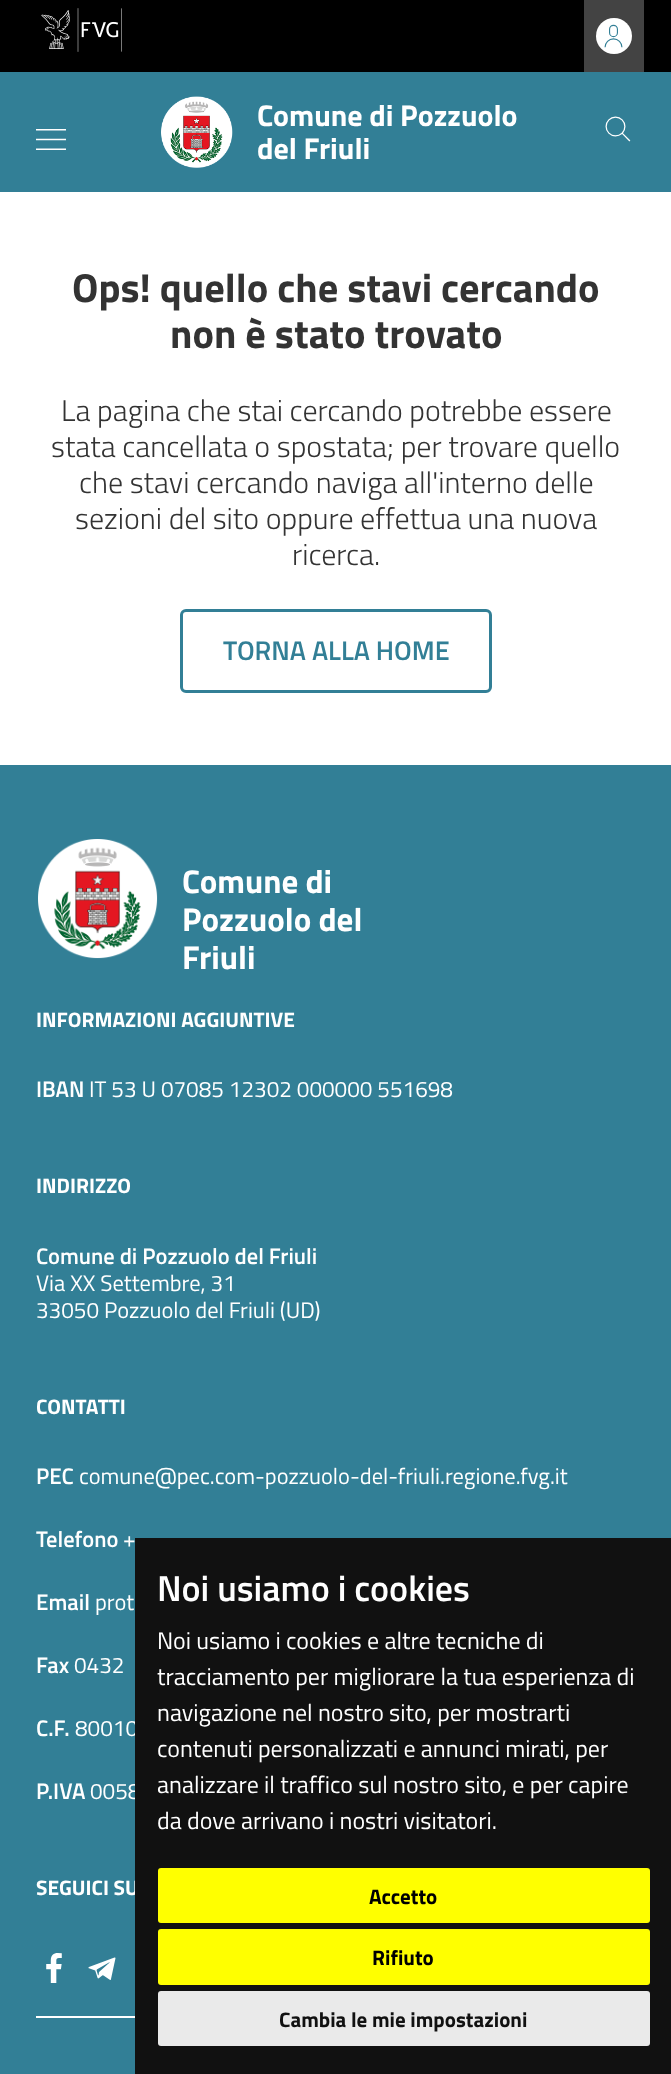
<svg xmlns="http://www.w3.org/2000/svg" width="671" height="2074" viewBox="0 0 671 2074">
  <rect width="100%" height="100%" fill="#fff"/>
  <path d="M0 0h671v72H0z" fill="#000"/>
  <image x="41" y="8" width="81" height="44" href="img/1.png"/>
  <path d="M584 0h60v72H584z" fill="#434343"/>
  <circle cx="614" cy="36" r="18" fill="#fff"/>
  <image x="604" y="24" width="19" height="24" href="img/2.png"/>
  <path d="M0 72h671v120H0z" fill="#327f96"/>
  <image x="36" y="129" width="30" height="21" href="img/3.png"/>
  <image x="161" y="96" width="72" height="72" href="img/4.png"/>
  <image x="605" y="116" width="26" height="26" href="img/5.png"/>
  <rect x="181.5" y="610.5" width="309" height="81" rx="4.5" fill="none" stroke="#327f96" stroke-width="3"/>
  <path d="M0 765h671v1309H0z" fill="#327f96"/>
  <image x="38" y="839" width="120" height="120" href="img/6.png"/>
  <image x="46" y="1953" width="16" height="30" href="img/7.png"/>
  <image x="88" y="1957" width="28" height="23" href="img/8.png"/>
  <path d="M36 2016h99v2H36z" fill="#fff"/>
  <g font-family="Titillium Web" font-size="30" font-weight="bold" fill="#fff">
    <text x="257" y="126">Comune di Pozzuolo</text>
    <text x="257" y="159">del Friuli</text>
  </g>
  <g font-family="Titillium Web" font-size="40.5" font-weight="bold" fill="#333">
    <text x="72" y="302">Ops! quello che stavi cercando</text>
    <text x="170" y="348">non è stato trovato</text>
  </g>
  <g font-family="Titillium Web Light" font-size="30" font-weight="300" fill="#333">
    <text x="61" y="421">La pagina che stai cercando potrebbe essere</text>
    <text x="51" y="457">stata cancellata o spostata; per trovare quello</text>
    <text x="79" y="493">che stavi cercando naviga all'interno delle</text>
    <text x="75" y="529">sezioni del sito oppure effettua una nuova</text>
    <text x="292" y="565">ricerca.</text>
  </g>
  <text x="223" y="660" font-family="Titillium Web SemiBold" font-size="27" font-weight="600" fill="#327f96">TORNA ALLA HOME</text>
  <g font-family="Titillium Web" font-size="33" font-weight="bold" fill="#fff">
    <text x="182" y="893">Comune di</text>
    <text x="182" y="931">Pozzuolo del</text>
    <text x="182" y="969">Friuli</text>
  </g>
  <text x="36" y="1027" font-family="Titillium Web" font-size="21" font-weight="bold" fill="#fff">INFORMAZIONI AGGIUNTIVE</text>
  <text x="36" y="1097" font-family="Titillium Web SemiBold" font-size="22.5" font-weight="600" fill="#fff">IBAN</text>
  <text x="89" y="1097" font-family="Titillium Web" font-size="22.5" fill="#fff">IT 53 U 07085 12302 000000 551698</text>
  <text x="36" y="1193" font-family="Titillium Web" font-size="21" font-weight="bold" fill="#fff">INDIRIZZO</text>
  <text x="36" y="1264" font-family="Titillium Web SemiBold" font-size="22.5" font-weight="600" fill="#fff">Comune di Pozzuolo del Friuli</text>
  <g font-family="Titillium Web" font-size="22.5" fill="#fff">
    <text x="36" y="1291">Via XX Settembre, 31</text>
    <text x="36" y="1318">33050 Pozzuolo del Friuli (UD)</text>
  </g>
  <text x="36" y="1414" font-family="Titillium Web" font-size="21" font-weight="bold" fill="#fff">CONTATTI</text>
  <text x="36" y="1484" font-family="Titillium Web SemiBold" font-size="22.5" font-weight="600" fill="#fff">PEC</text>
  <text x="79" y="1484" font-family="Titillium Web" font-size="22.5" fill="#fff">comune@pec.com-pozzuolo-del-friuli.regione.fvg.it</text>
  <text x="36" y="1547" font-family="Titillium Web SemiBold" font-size="22.5" font-weight="600" fill="#fff">Telefono</text>
  <text x="123" y="1547" font-family="Titillium Web" font-size="22.5" fill="#fff">+</text>
  <text x="36" y="1610" font-family="Titillium Web SemiBold" font-size="22.5" font-weight="600" fill="#fff">Email</text>
  <text x="95" y="1610" font-family="Titillium Web" font-size="22.5" fill="#fff">prot</text>
  <text x="36" y="1673" font-family="Titillium Web SemiBold" font-size="22.5" font-weight="600" fill="#fff">Fax</text>
  <text x="74" y="1673" font-family="Titillium Web" font-size="22.5" fill="#fff">0432</text>
  <text x="36" y="1736" font-family="Titillium Web SemiBold" font-size="22.5" font-weight="600" fill="#fff">C.F.</text>
  <text x="75" y="1736" font-family="Titillium Web" font-size="22.5" fill="#fff">80010</text>
  <text x="36" y="1799" font-family="Titillium Web SemiBold" font-size="22.5" font-weight="600" fill="#fff">P.IVA</text>
  <text x="90" y="1799" font-family="Titillium Web" font-size="22.5" fill="#fff">0058</text>
  <text x="36" y="1895" font-family="Titillium Web" font-size="21" font-weight="bold" fill="#fff">SEGUICI SU</text>
  <path d="M135 1538h536v536H135z" fill="#111"/>
  <text x="157" y="1601" font-family="Titillium Web SemiBold" font-size="36" font-weight="600" fill="#fff">Noi usiamo i cookies</text>
  <g font-family="Titillium Web" font-size="24" fill="#fff">
    <text x="157" y="1649">Noi usiamo i cookies e altre tecniche di</text>
    <text x="157" y="1685">tracciamento per migliorare la tua esperienza di</text>
    <text x="157" y="1721">navigazione nel nostro sito, per mostrarti</text>
    <text x="157" y="1757">contenuti personalizzati e annunci mirati, per</text>
    <text x="157" y="1793">analizzare il traffico sul nostro sito, e per capire</text>
    <text x="157" y="1829">da dove arrivano i nostri visitatori.</text>
  </g>
  <rect x="158" y="1868" width="492" height="55" rx="3" fill="#ff0"/>
  <text x="369" y="1904" font-family="Titillium Web" font-size="21" font-weight="bold" fill="#000">Accetto</text>
  <rect x="158" y="1929" width="492" height="56" rx="3" fill="#ff0"/>
  <text x="372" y="1965" font-family="Titillium Web" font-size="21" font-weight="bold" fill="#000">Rifiuto</text>
  <rect x="158" y="1991" width="492" height="55" rx="3" fill="#eaeaea"/>
  <text x="279" y="2027" font-family="Titillium Web" font-size="21" font-weight="bold" fill="#111">Cambia le mie impostazioni</text>
</svg>
